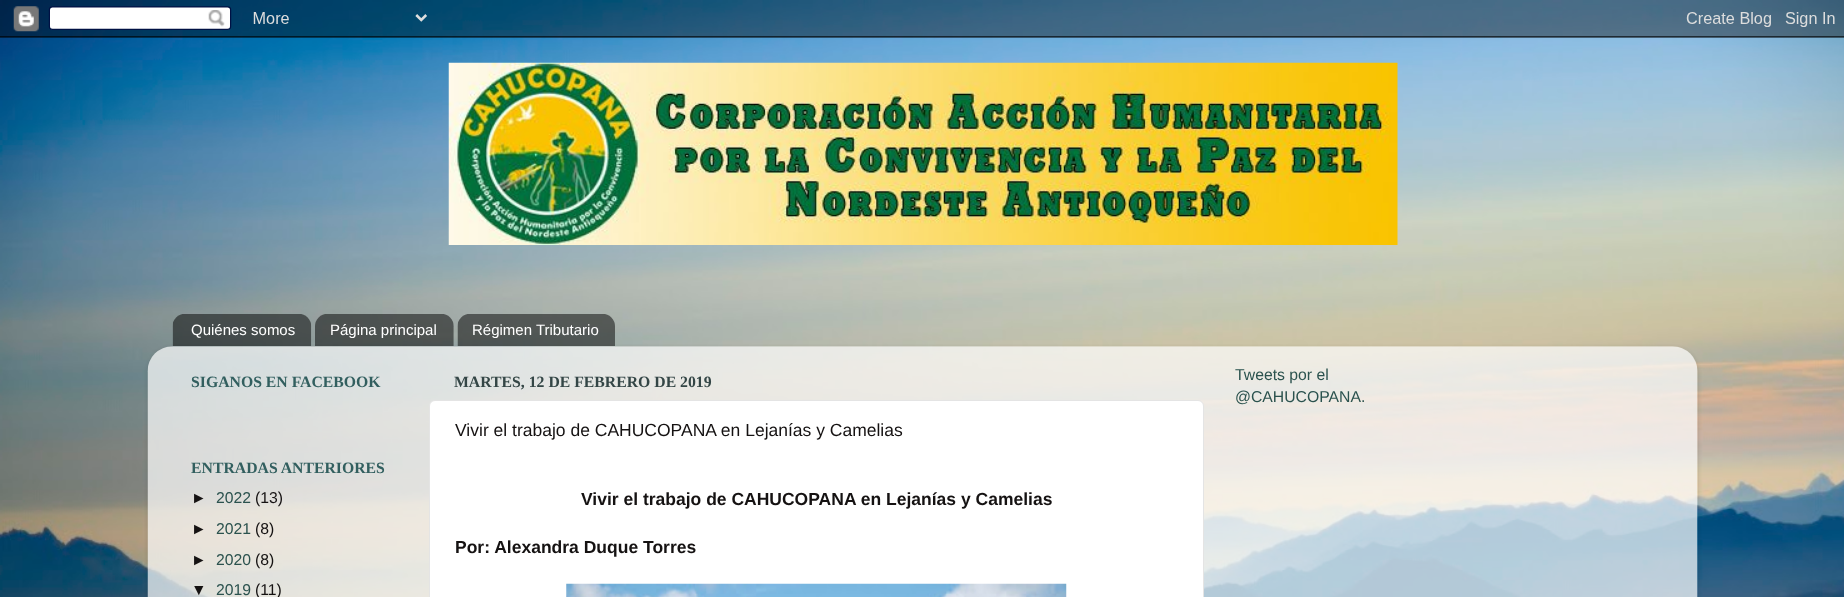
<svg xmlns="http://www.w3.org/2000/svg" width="1844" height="597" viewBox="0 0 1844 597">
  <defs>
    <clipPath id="clip1"><path d="M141 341H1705V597H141ZM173 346H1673C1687 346 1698 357 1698 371V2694H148V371C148 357 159 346 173 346Z" clip-rule="evenodd"/></clipPath>
  </defs>
  <rect width="100%" height="100%" fill="#fff"/>
  <image x="0" y="0" width="1844" height="597" href="img/1.png"/>
  <image x="0" y="0" width="1844" height="38" href="img/2.png"/>
  <image x="448" y="62" width="950" height="183" href="img/3.png"/>
  <image x="172" y="314" width="140" height="32" href="img/4.png"/>
  <image x="315" y="314" width="139" height="32" href="img/5.png"/>
  <image x="457" y="314" width="158" height="32" href="img/6.png"/>
  <g clip-path="url(#clip1)">
    <rect x="148" y="348" width="1550" height="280" rx="25" fill="#00000026" filter="blur(2px)"/>
  </g>
  <image x="147" y="346" width="1551" height="251" href="img/7.png"/>
  <rect x="429.5" y="400.5" width="774" height="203" rx="5.5" fill="#fff" stroke="#e4e4e4"/>
  <image x="566" y="583" width="501" height="14" href="img/8.png"/>
  <g font-family="Liberation Sans" font-size="15" fill="#fff">
    <text x="191" y="335">Quiénes somos</text>
    <text x="330" y="335">Página principal</text>
    <text x="472" y="335">Régimen Tributario</text>
  </g>
  <g font-family="Liberation Serif" font-size="15.75" font-weight="bold" fill="#325f5f">
    <text x="191" y="387">SIGANOS EN FACEBOOK</text>
    <text x="191" y="473">ENTRADAS ANTERIORES</text>
  </g>
  <text x="191" y="503" font-family="Liberation Sans" font-size="15.75" fill="#151212">►</text>
  <text x="216" y="503" font-family="Liberation Sans" font-size="15.75" fill="#2b524e">2022</text>
  <g font-family="Liberation Sans" font-size="15.75" fill="#151212">
    <text x="255" y="503">(13)</text>
    <text x="191" y="534">►</text>
  </g>
  <text x="216" y="534" font-family="Liberation Sans" font-size="15.75" fill="#2b524e">2021</text>
  <g font-family="Liberation Sans" font-size="15.75" fill="#151212">
    <text x="255" y="534">(8)</text>
    <text x="191" y="565">►</text>
  </g>
  <text x="216" y="565" font-family="Liberation Sans" font-size="15.75" fill="#2b524e">2020</text>
  <g font-family="Liberation Sans" font-size="15.75" fill="#151212">
    <text x="255" y="565">(8)</text>
    <text x="191" y="595">▼</text>
  </g>
  <text x="216" y="595" font-family="Liberation Sans" font-size="15.75" fill="#2b524e">2019</text>
  <text x="255" y="595" font-family="Liberation Sans" font-size="15.75" fill="#151212">(11)</text>
  <text x="454" y="387" font-family="Liberation Serif" font-size="15.75" font-weight="bold" fill="#344646">MARTES, 12 DE FEBRERO DE 2019</text>
  <text x="455" y="436" font-family="Liberation Sans" font-size="17.5" fill="#151212">Vivir el trabajo de CAHUCOPANA en Lejanías y Camelias</text>
  <g font-family="Liberation Sans" font-size="17.5" font-weight="bold" fill="#151212">
    <text x="581" y="505">Vivir el trabajo de CAHUCOPANA en Lejanías y Camelias</text>
    <text x="455" y="553">Por: Alexandra Duque Torres</text>
  </g>
  <g font-family="Liberation Sans" font-size="15.75" fill="#2b524e">
    <text x="1235" y="380">Tweets por el</text>
    <text x="1235" y="402">@CAHUCOPANA.</text>
  </g>
</svg>
